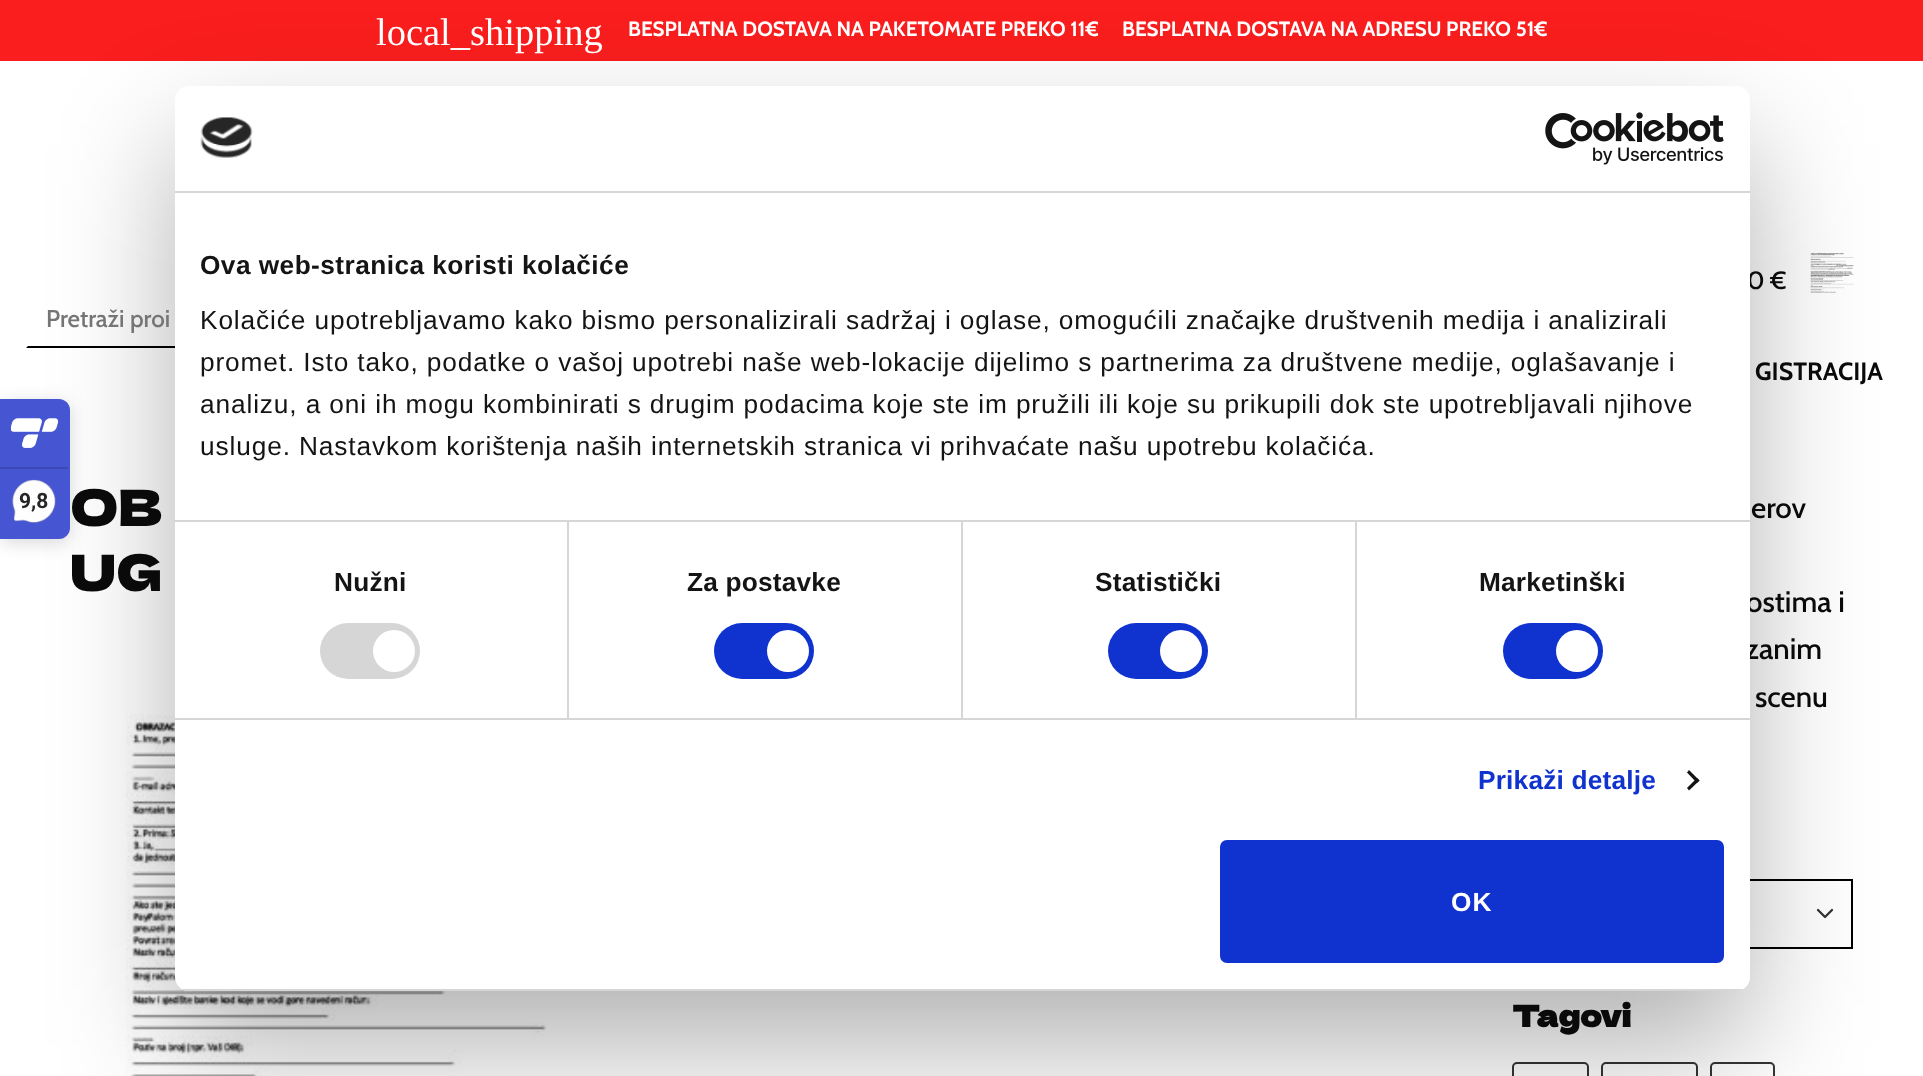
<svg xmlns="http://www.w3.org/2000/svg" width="1923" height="1076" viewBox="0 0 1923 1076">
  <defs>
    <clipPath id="clip1"><rect x="175" y="86" width="1575" height="905" rx="14"/></clipPath>
  </defs>
  <rect width="100%" height="100%" fill="#fff"/>
  <path d="M0 0h1923v61H0z" fill="#fa1e1e"/>
  <path d="M268 348H26L28 346H266Z" fill="#000"/>
  <image x="1810" y="253" width="44" height="40" href="img/1.png"/>
  <image x="126" y="714" width="421" height="362" href="img/2.png"/>
  <path d="M1818 910L1825 917L1832 910" fill="none" stroke="#333" stroke-width="2.3" stroke-linecap="round" stroke-linejoin="round"/>
  <path d="M1513 880h339v68H1513z" fill="none" stroke="#000" stroke-width="2"/>
  <rect x="1513" y="1063" width="75" height="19" rx="4" fill="none" stroke="#353535" stroke-width="2"/>
  <rect x="1602" y="1063" width="95" height="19" rx="4" fill="none" stroke="#353535" stroke-width="2"/>
  <rect x="1711" y="1063" width="63" height="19" rx="4" fill="none" stroke="#353535" stroke-width="2"/>
  <rect y="403" width="70" height="140" rx="11" fill="#00000026" filter="blur(9px)"/>
  <rect x="175" y="142" width="1575" height="905" rx="14" fill="#0000004d" filter="blur(59.5px)"/>
  <path d="M0 399H59C65 399 70 404 70 410V528C70 534 65 539 59 539H0Z" fill="#4655d2"/>
  <image x="11" y="418" width="47" height="30" href="img/3.png"/>
  <path d="M0 467h68v2H0z" fill="#3c48b3"/>
  <image x="12" y="479" width="44" height="44" href="img/4.png"/>
  <text x="376" y="45" font-family="Liberation Serif" font-size="38.5" fill="#fff">local_shipping</text>
  <g font-family="Cabin" font-size="20.6" font-weight="bold" fill="#fff">
    <text x="628" y="36">BESPLATNA DOSTAVA NA PAKETOMATE PREKO 11€</text>
    <text x="1122" y="36">BESPLATNA DOSTAVA NA ADRESU PREKO 51€</text>
  </g>
  <text x="46" y="327" font-family="Cabin" font-size="24.25" font-weight="500" fill="#757575">Pretraži proi</text>
  <text x="1747" y="289" font-family="Cabin" font-size="25" font-weight="500" fill="#0a0a0a">0 €</text>
  <text x="1755" y="380" font-family="Cabin" font-size="25" font-weight="bold" fill="#0a0a0a">GISTRACIJA</text>
  <g font-family="Dela Gothic One" font-size="50" fill="#0a0a0a">
    <text x="70" y="526">OB</text>
    <text x="70" y="591">UG</text>
  </g>
  <g font-family="Cabin" font-size="29.5" font-weight="500" fill="#0a0a0a">
    <text x="1751" y="518">erov</text>
    <text x="1746" y="612">ostima i</text>
    <text x="1745" y="659">zanim</text>
    <text x="1755" y="707">scenu</text>
  </g>
  <text x="1512" y="1027" font-family="Dela Gothic One" font-size="29.5" font-weight="bold" fill="#0a0a0a">Tagovi</text>
  <text x="19" y="508" font-family="Roboto" font-size="21" font-weight="bold" fill="#272626">9,8</text>
  <rect x="175" y="86" width="1575" height="905" rx="14" fill="#fff"/>
  <path d="M175 191h1575v2H175z" fill="#d6d6d6"/>
  <image x="200" y="117" width="53" height="41" href="img/5.png"/>
  <image x="1545" y="112" width="179" height="53" href="img/6.png"/>
  <path d="M175 520h1575v2H175z" fill="#d6d6d6"/>
  <text x="200" y="274" font-family="Liberation Sans" font-size="26.25" font-weight="bold" letter-spacing="0.45" fill="#141414">Ova web-stranica koristi kolačiće</text>
  <g font-family="Liberation Sans" font-size="26.25" letter-spacing="0.88" fill="#141414">
    <text x="200" y="329">Kolačiće upotrebljavamo kako bismo personalizirali sadržaj i oglase, omogućili značajke društvenih medija i analizirali</text>
    <text x="200" y="371">promet. Isto tako, podatke o vašoj upotrebi naše web-lokacije dijelimo s partnerima za društvene medije, oglašavanje i</text>
    <text x="200" y="413">analizu, a oni ih mogu kombinirati s drugim podacima koje ste im pružili ili koje su prikupili dok ste upotrebljavali njihove</text>
    <text x="200" y="455">usluge. Nastavkom korištenja naših internetskih stranica vi prihvaćate našu upotrebu kolačića.</text>
  </g>
  <path d="M175 718h1575v2H175z" fill="#d6d6d6"/>
  <path d="M567 522h2v196H567z" fill="#d6d6d6"/>
  <text x="334" y="591" font-family="Liberation Sans" font-size="26.25" font-weight="bold" letter-spacing="0.2" fill="#141414">Nužni</text>
  <rect x="320" y="623" width="100" height="56" rx="28" fill="#d6d6d6"/>
  <circle cx="394" cy="651" r="21" fill="#fff"/>
  <path d="M961 522h2v196H961z" fill="#d6d6d6"/>
  <text x="687" y="591" font-family="Liberation Sans" font-size="26.25" font-weight="bold" letter-spacing="0.2" fill="#141414">Za postavke</text>
  <rect x="714" y="623" width="100" height="56" rx="28" fill="#1032cf"/>
  <circle cx="788" cy="651" r="21" fill="#fff"/>
  <path d="M1355 522h2v196H1355z" fill="#d6d6d6"/>
  <text x="1095" y="591" font-family="Liberation Sans" font-size="26.25" font-weight="bold" letter-spacing="0.2" fill="#141414">Statistički</text>
  <rect x="1108" y="623" width="100" height="56" rx="28" fill="#1032cf"/>
  <circle cx="1181" cy="651" r="21" fill="#fff"/>
  <text x="1479" y="591" font-family="Liberation Sans" font-size="26.25" font-weight="bold" letter-spacing="0.2" fill="#141414">Marketinški</text>
  <rect x="1503" y="623" width="100" height="56" rx="28" fill="#1032cf"/>
  <circle cx="1577" cy="651" r="21" fill="#fff"/>
  <text x="1478" y="789" font-family="Liberation Sans" font-size="26.25" font-weight="bold" letter-spacing="0.2" fill="#1032cf">Prikaži detalje</text>
  <path d="M1689 770L1699.5 780.5L1697 783L1687 772.5Z" fill="#141414"/>
  <path d="M1697 778L1699.5 780.5L1689 790.5L1687 788Z" fill="#141414"/>
  <g clip-path="url(#clip1)">
    <path d="M175 989h1575v2H175z" fill="#d6d6d6"/>
  </g>
  <rect x="1222" y="842" width="500" height="119" rx="5" fill="#1032cf" stroke="#1032cf" stroke-width="4"/>
  <text x="1451" y="911" font-family="Liberation Sans" font-size="26.25" font-weight="bold" letter-spacing="1" fill="#fff">OK</text>
</svg>
